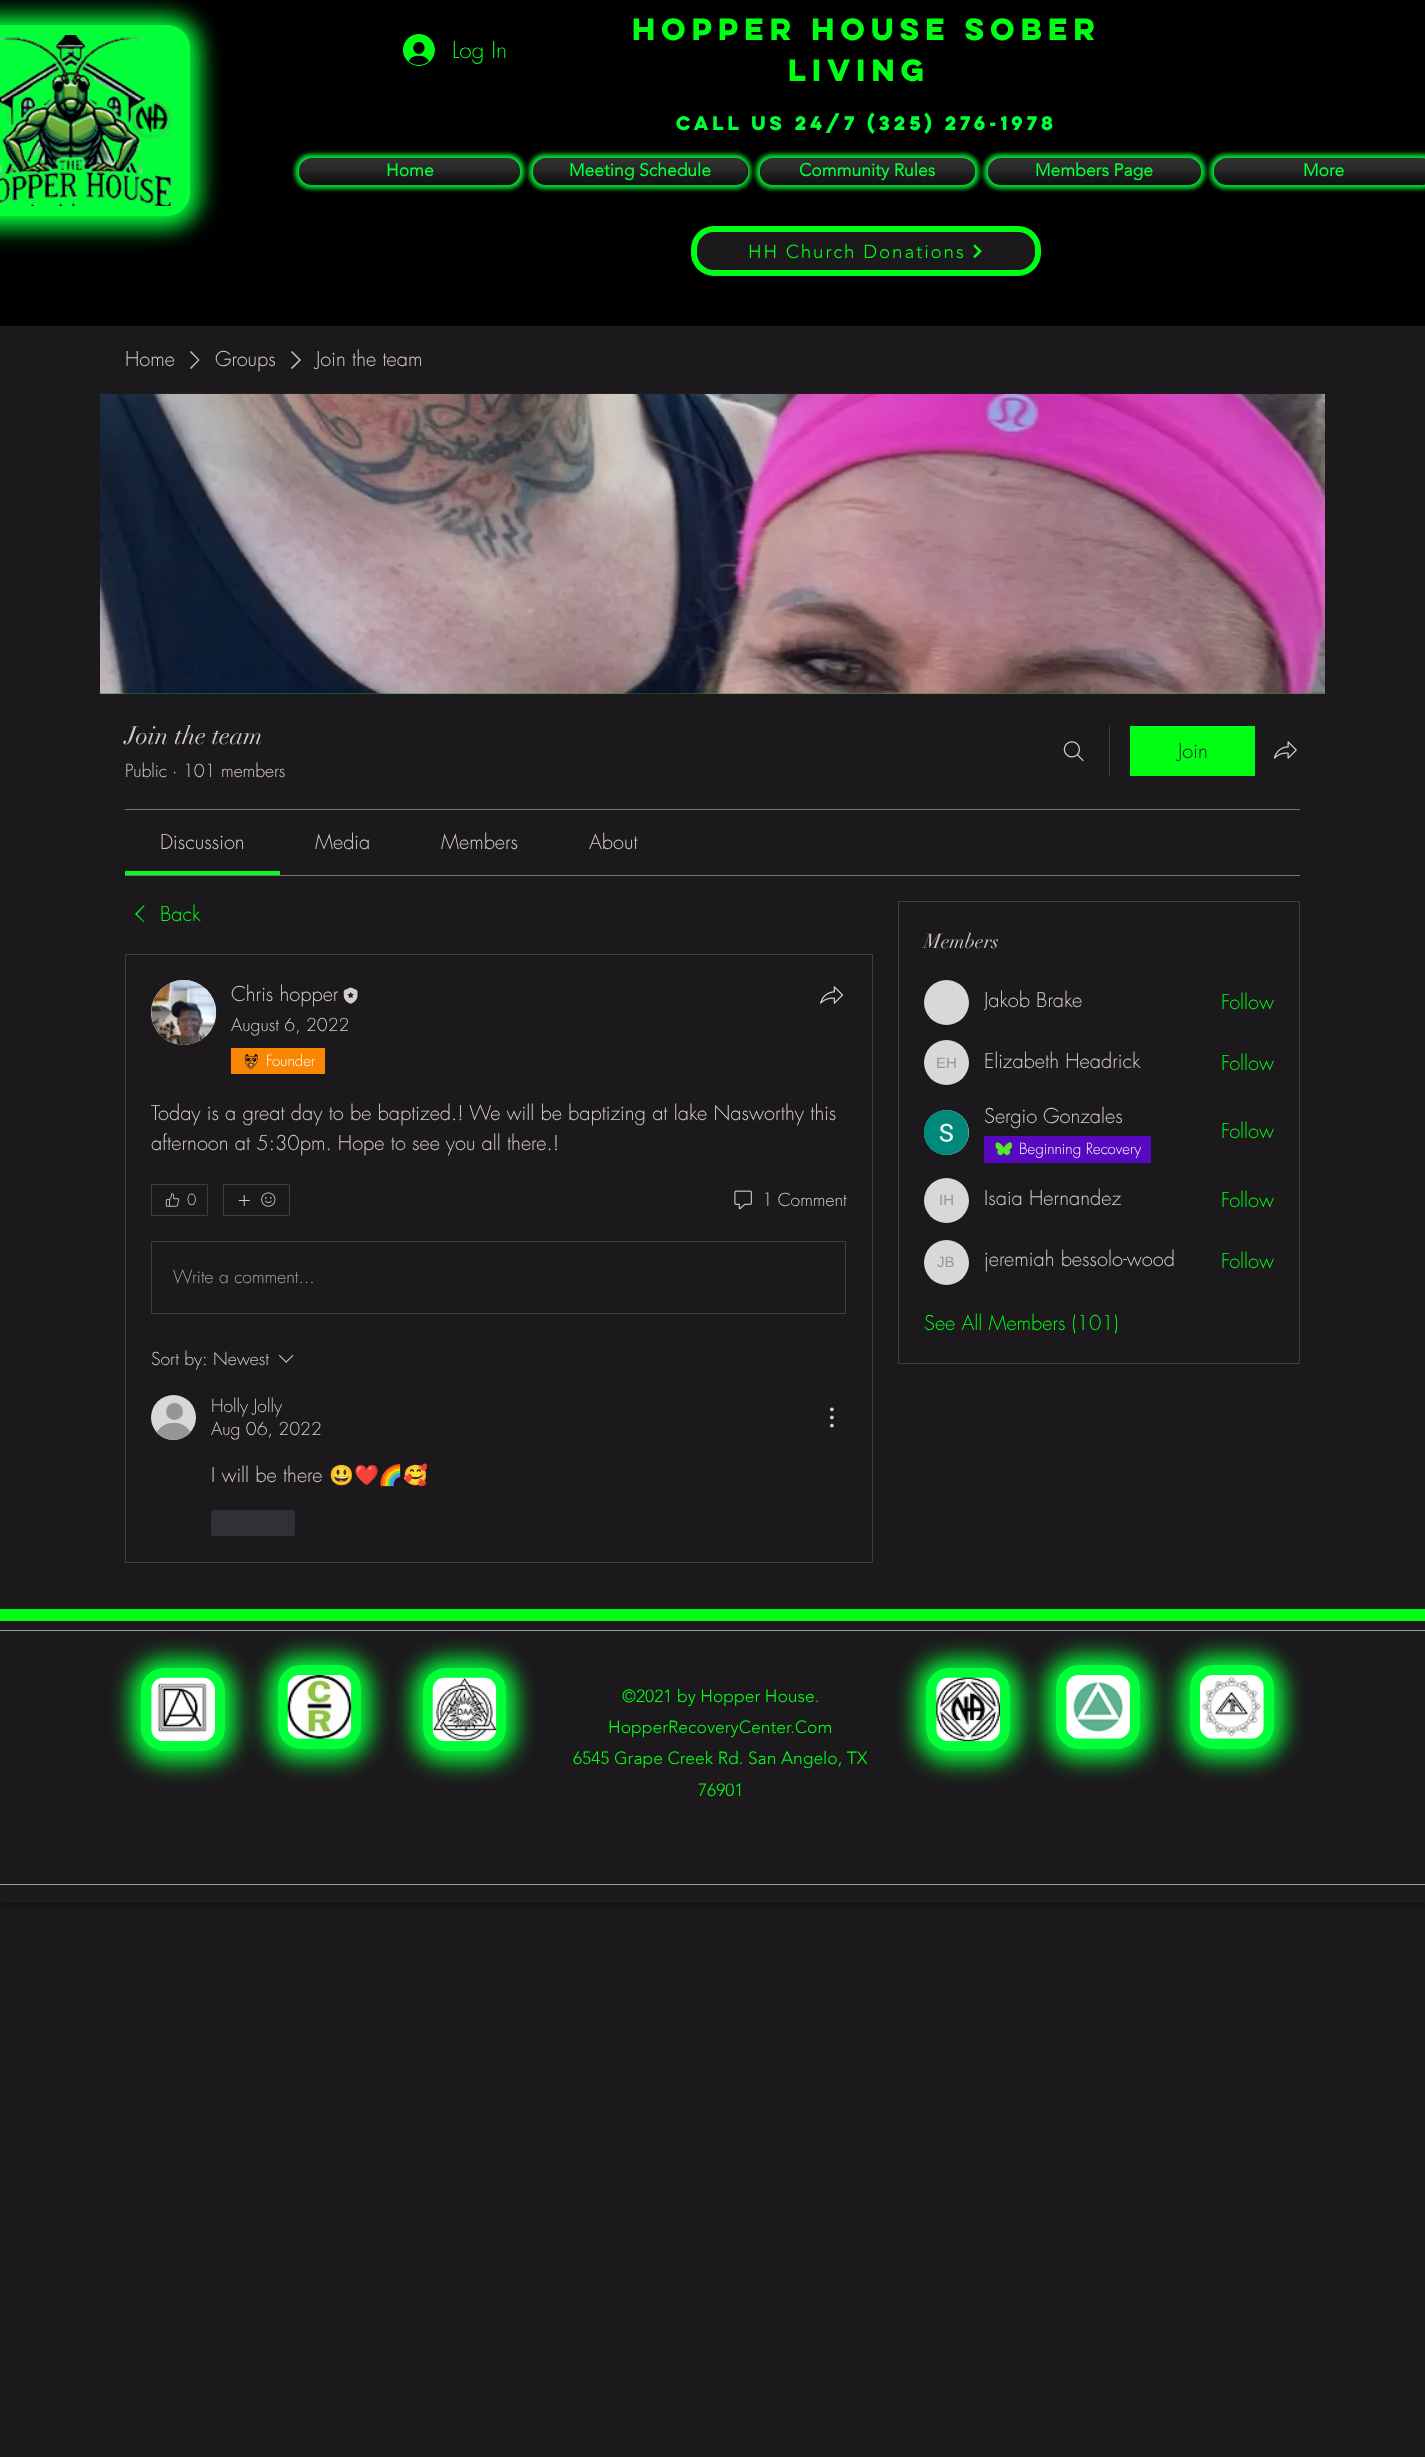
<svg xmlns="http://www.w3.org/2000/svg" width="1425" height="2457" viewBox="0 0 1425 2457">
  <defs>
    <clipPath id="clip1"><path d="M984 986h99v29H984z"/></clipPath>
  </defs>
  <rect width="100%" height="100%" fill="#1c191c"/>
  <path d="M0 0h1425v326H0z" fill="#000"/>
  <rect x="-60" y="16" width="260" height="212" rx="33" fill="#03ff39fa" filter="blur(10.5px)"/>
  <rect x="-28" y="30" width="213" height="181" rx="18" fill="#03ff39" stroke="#03ff39" stroke-width="10"/>
  <image x="0" y="35" width="172" height="171" href="img/1.png"/>
  <image x="403" y="34" width="32" height="32" href="img/2.png"/>
  <rect x="295" y="154" width="229" height="35" rx="16" fill="#03ff39d9" filter="blur(2px)"/>
  <rect x="299" y="158" width="221" height="27" rx="13" fill="#000"/>
  <image x="299" y="158" width="221" height="27" href="img/3.png"/>
  <image x="299" y="173" width="220" height="12" href="img/4.png"/>
  <rect x="529" y="154" width="222" height="35" rx="16" fill="#03ff39d9" filter="blur(2px)"/>
  <rect x="533" y="158" width="215" height="27" rx="13" fill="#000"/>
  <image x="532" y="158" width="216" height="27" href="img/5.png"/>
  <image x="532" y="173" width="214" height="12" href="img/6.png"/>
  <rect x="756" y="154" width="223" height="35" rx="16" fill="#03ff39d9" filter="blur(2px)"/>
  <rect x="760" y="158" width="215" height="27" rx="13" fill="#000"/>
  <image x="760" y="158" width="215" height="27" href="img/7.png"/>
  <image x="760" y="173" width="214" height="12" href="img/8.png"/>
  <rect x="984" y="154" width="221" height="35" rx="16" fill="#03ff39d9" filter="blur(2px)"/>
  <rect x="988" y="158" width="213" height="27" rx="13" fill="#000"/>
  <image x="987" y="158" width="214" height="27" href="img/9.png"/>
  <image x="987" y="173" width="214" height="12" href="img/10.png"/>
  <rect x="1210" y="154" width="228" height="35" rx="16" fill="#03ff39d9" filter="blur(2px)"/>
  <rect x="1214" y="158" width="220" height="27" rx="13" fill="#000"/>
  <image x="1213" y="158" width="212" height="27" href="img/11.png"/>
  <image x="1213" y="173" width="212" height="12" href="img/12.png"/>
  <rect x="694" y="229" width="344" height="44" rx="20" fill="#1c191c" stroke="#00ff15" stroke-width="6"/>
  <image x="973" y="244" width="9" height="14" href="img/13.png"/>
  <path d="M191 351L199.5 360L191 369L190 368L198 360L190 352Z" fill="#d2cdd2" fill-rule="evenodd"/>
  <path d="M292 351L301 360L292 369L291 368L299 360L291 352Z" fill="#d2cdd2" fill-rule="evenodd"/>
  <path d="M100 693h1225v1H100z" fill="#0ba318"/>
  <image x="100" y="393" width="1225" height="301" href="img/14.png"/>
  <image x="1063" y="741" width="21" height="21" href="img/15.png"/>
  <path d="M1109 726h1v50H1109z" fill="#403d40"/>
  <path d="M1130 726h125v50H1130z" fill="#00ff15"/>
  <image x="1273" y="741" width="24" height="18" href="img/16.png"/>
  <path d="M125 809h1175v1H125z" fill="#777377"/>
  <path d="M125 875h1175v1H125z" fill="#777377"/>
  <path d="M125 871h155v4H125z" fill="#00ff15"/>
  <path d="M144 905L144.5 906L137 914L144.5 922L144 922.5L135 914Z" fill="#00ff15" fill-rule="evenodd"/>
  <path d="M125.5 954.5h747v608H125.5z" fill="none" stroke="#403d40"/>
  <circle cx="183.5" cy="1012.5" r="32.5" fill="#d8d8d8"/>
  <image x="151" y="980" width="66" height="65" href="img/17.png"/>
  <image x="343" y="987" width="15" height="17" href="img/18.png"/>
  <path d="M231 1048h94v26H231z" fill="#fa8704"/>
  <image x="244" y="1053" width="14" height="16" href="img/19.png"/>
  <image x="820" y="986" width="23" height="18" href="img/20.png"/>
  <path d="M151.5 1184.5h56v31H151.5z" fill="none" stroke="#403d40"/>
  <image x="165" y="1193" width="15" height="14" href="img/21.png"/>
  <path d="M223.5 1184.5h66v31H223.5z" fill="none" stroke="#403d40"/>
  <image x="238" y="1195" width="12" height="11" href="img/22.png"/>
  <image x="261" y="1192" width="15" height="15" href="img/23.png"/>
  <image x="734" y="1190" width="18" height="20" href="img/24.png"/>
  <path d="M151.5 1241.5h694v72H151.5z" fill="none" stroke="#403d40"/>
  <image x="278" y="1354" width="16" height="9" href="img/25.png"/>
  <circle cx="173.5" cy="1417.5" r="22.5" fill="#d8d8d8"/>
  <circle cx="174.5" cy="1411.5" r="8.5" fill="#969696"/>
  <path d="M190.5 1432C182 1442.5 165.5 1442.5 156.5 1432.5C164 1419.5 183 1419.5 190.5 1432Z" fill="#969696"/>
  <image x="830" y="1407" width="4" height="21" href="img/26.png"/>
  <rect x="211" y="1510" width="84" height="26" rx="2.5" fill="#313037"/>
  <path d="M898.5 901.5h401v462H898.5z" fill="none" stroke="#403d40"/>
  <circle cx="946.5" cy="1002.5" r="22.5" fill="#d8d8d8"/>
  <circle cx="946.5" cy="1062.5" r="22.5" fill="#d8d8d8"/>
  <circle cx="946.5" cy="1132.5" r="22.5" fill="#d8d8d8"/>
  <image x="923" y="1110" width="46" height="45" href="img/27.png"/>
  <path d="M984 1136h167v27H984z" fill="#5609be"/>
  <image x="995" y="1142" width="17" height="14" href="img/28.png"/>
  <circle cx="946.5" cy="1200.5" r="22.5" fill="#d8d8d8"/>
  <circle cx="946.5" cy="1262.5" r="22.5" fill="#d8d8d8"/>
  <path d="M0 1613h1425v290H0z" fill="#000000b3" filter="blur(3px)"/>
  <path d="M0 1621h1425v282H0z" fill="#1c191c"/>
  <path d="M0 1630h1425v1H0z" fill="#a4a0a4"/>
  <path d="M0 1884h1425v1H0z" fill="#a4a0a4"/>
  <path d="M0 1609h1425v12H0z" fill="#00ff15"/>
  <rect x="131" y="1659" width="104" height="104" rx="33" fill="#03ff39fa" filter="blur(10.5px)"/>
  <rect x="146" y="1673" width="74" height="73" rx="18" fill="#03ff39" stroke="#03ff39" stroke-width="10"/>
  <image x="151" y="1677" width="64" height="65" href="img/29.png"/>
  <rect x="268" y="1656" width="103" height="104" rx="33" fill="#03ff39fa" filter="blur(10.5px)"/>
  <rect x="283" y="1670" width="73" height="74" rx="18" fill="#03ff39" stroke="#03ff39" stroke-width="10"/>
  <image x="287" y="1675" width="65" height="64" href="img/30.png"/>
  <rect x="413" y="1659" width="103" height="104" rx="33" fill="#03ff39fa" filter="blur(10.5px)"/>
  <rect x="428" y="1673" width="73" height="73" rx="18" fill="none" stroke="#03ff39" stroke-width="10"/>
  <image x="432" y="1677" width="65" height="65" href="img/31.png"/>
  <rect x="916" y="1659" width="104" height="104" rx="33" fill="#03ff39fa" filter="blur(10.5px)"/>
  <rect x="931" y="1673" width="74" height="73" rx="18" fill="#03ff39" stroke="#03ff39" stroke-width="10"/>
  <image x="936" y="1677" width="64" height="65" href="img/32.png"/>
  <rect x="1046" y="1656" width="104" height="104" rx="33" fill="#03ff39fa" filter="blur(10.5px)"/>
  <rect x="1061" y="1670" width="74" height="74" rx="18" fill="#03ff39" stroke="#03ff39" stroke-width="10"/>
  <image x="1066" y="1675" width="64" height="64" href="img/33.png"/>
  <rect x="1180" y="1656" width="104" height="104" rx="33" fill="#03ff39fa" filter="blur(10.5px)"/>
  <rect x="1195" y="1670" width="74" height="74" rx="18" fill="#03ff39" stroke="#03ff39" stroke-width="10"/>
  <image x="1200" y="1675" width="64" height="64" href="img/34.png"/>
  <text x="452" y="58" font-family="futura" font-size="22.5" font-weight="300" fill="#00ff15">Log In</text>
  <g font-family="'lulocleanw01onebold'" font-size="27.5" font-weight="bold" fill="#00ff15">
    <text x="632" y="40">Hopper House Sober</text>
    <text x="788" y="81">Living</text>
  </g>
  <text x="676" y="130" font-family="'lulocleanw01onebold'" font-size="17.5" font-weight="bold" fill="#03ff39">Call Us 24/7 (325) 276-1978</text>
  <g font-family="'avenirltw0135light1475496'" font-size="17.5" font-weight="bold" fill="#03ff39">
    <text x="386" y="176">Home</text>
    <text x="569" y="176">Meeting Schedule</text>
    <text x="799" y="176">Community Rules</text>
    <text x="1035" y="176">Members Page</text>
    <text x="1303" y="176">More</text>
  </g>
  <text x="748" y="258" font-family="'avenirltw0135light1475496'" font-size="18.75" font-weight="300" letter-spacing="1.9" fill="#00ff15">HH Church Donations</text>
  <g font-family="futura" font-size="20" font-weight="300" fill="#d2cdd2">
    <text x="125" y="366">Home</text>
    <text x="215" y="366">Groups</text>
    <text x="316" y="366">Join the team</text>
  </g>
  <text x="125" y="744" font-family="didot" font-size="25" fill="#d2cdd2">Join the team</text>
  <g font-family="futura" font-size="17.5" font-weight="300" fill="#d2cdd2">
    <text x="125" y="777">Public</text>
    <text x="172" y="777">·</text>
    <text x="183" y="777">101 members</text>
  </g>
  <text x="1178" y="758" font-family="futura" font-size="20" font-weight="300" fill="#1c191c">Join</text>
  <g font-family="futura" font-size="20" font-weight="300" fill="#d2cdd2">
    <text x="160" y="849">Discussion</text>
    <text x="315" y="849">Media</text>
    <text x="441" y="849">Members</text>
    <text x="589" y="849">About</text>
  </g>
  <text x="160" y="921" font-family="futura" font-size="20" font-weight="300" fill="#00ff15">Back</text>
  <text x="231" y="1001" font-family="futura" font-size="20" font-weight="300" fill="#d2cdd2">Chris hopper</text>
  <text x="231" y="1031" font-family="futura" font-size="17.5" font-weight="300" fill="#d2cdd2">August 6, 2022</text>
  <text x="266" y="1066" font-family="futura" font-size="15" font-weight="300" fill="#fff">Founder</text>
  <g font-family="futura" font-size="20" font-weight="300" fill="#d2cdd2">
    <text x="151" y="1120">Today is a great day to be baptized.! We will be baptizing at lake Nasworthy this</text>
    <text x="151" y="1150">afternoon at 5:30pm. Hope to see you all there.!</text>
  </g>
  <text x="187" y="1205" font-family="futura" font-size="15" font-weight="300" fill="#d2cdd2">0</text>
  <text x="762" y="1206" font-family="futura" font-size="17.5" font-weight="300" fill="#d2cdd2">1 Comment</text>
  <text x="173" y="1283" font-family="futura" font-size="17.5" font-weight="300" fill="#a4a0a4">Write a comment...</text>
  <g font-family="futura" font-size="17.5" font-weight="300" fill="#d2cdd2">
    <text x="151" y="1365">Sort by:</text>
    <text x="213" y="1365">Newest</text>
    <text x="211" y="1412">Holly Jolly</text>
    <text x="211" y="1435">Aug 06, 2022</text>
  </g>
  <text x="211" y="1482" font-family="futura" font-size="20" font-weight="300" fill="#d2cdd2">I will be there</text>
  <text x="329" y="1482" font-family="Noto Color Emoji" font-size="20" fill="#d2cdd2">😃❤️🌈🥰</text>
  <text x="924" y="948" font-family="didot" font-size="20" fill="#d2cdd2">Members</text>
  <g clip-path="url(#clip1)">
    <text x="984" y="1007" font-family="futura" font-size="20" font-weight="300" fill="#d2cdd2">Jakob Brake</text>
  </g>
  <text x="1221" y="1009" font-family="futura" font-size="20" font-weight="300" fill="#00ff15">Follow</text>
  <text x="936" y="1068" font-family="Liberation Sans" font-size="15" fill="#979797">EH</text>
  <text x="984" y="1068" font-family="futura" font-size="20" font-weight="300" fill="#d2cdd2">Elizabeth Headrick</text>
  <text x="1221" y="1070" font-family="futura" font-size="20" font-weight="300" fill="#00ff15">Follow</text>
  <text x="984" y="1123" font-family="futura" font-size="20" font-weight="300" fill="#d2cdd2">Sergio Gonzales</text>
  <text x="1019" y="1154" font-family="futura" font-size="15" font-weight="300" fill="#fff">Beginning Recovery</text>
  <text x="1221" y="1138" font-family="futura" font-size="20" font-weight="300" fill="#00ff15">Follow</text>
  <text x="939" y="1205" font-family="Liberation Sans" font-size="15" fill="#979797">IH</text>
  <text x="984" y="1205" font-family="futura" font-size="20" font-weight="300" fill="#d2cdd2">Isaia Hernandez</text>
  <text x="1221" y="1207" font-family="futura" font-size="20" font-weight="300" fill="#00ff15">Follow</text>
  <text x="937" y="1267" font-family="Liberation Sans" font-size="15" fill="#979797">JB</text>
  <text x="984" y="1266" font-family="futura" font-size="20" font-weight="300" fill="#d2cdd2">jeremiah bessolo-wood</text>
  <g font-family="futura" font-size="20" font-weight="300" fill="#00ff15">
    <text x="1221" y="1268">Follow</text>
    <text x="924" y="1330">See All Members (101)</text>
  </g>
  <g font-family="'avenirltw0135light1475496'" font-size="17.5" font-weight="300" fill="#00ff15">
    <text x="622" y="1702">©2021 by Hopper House.</text>
    <text x="608" y="1733">HopperRecoveryCenter.Com</text>
    <text x="573" y="1764">6545 Grape Creek Rd. San Angelo, TX</text>
    <text x="698" y="1796">76901</text>
  </g>
</svg>
